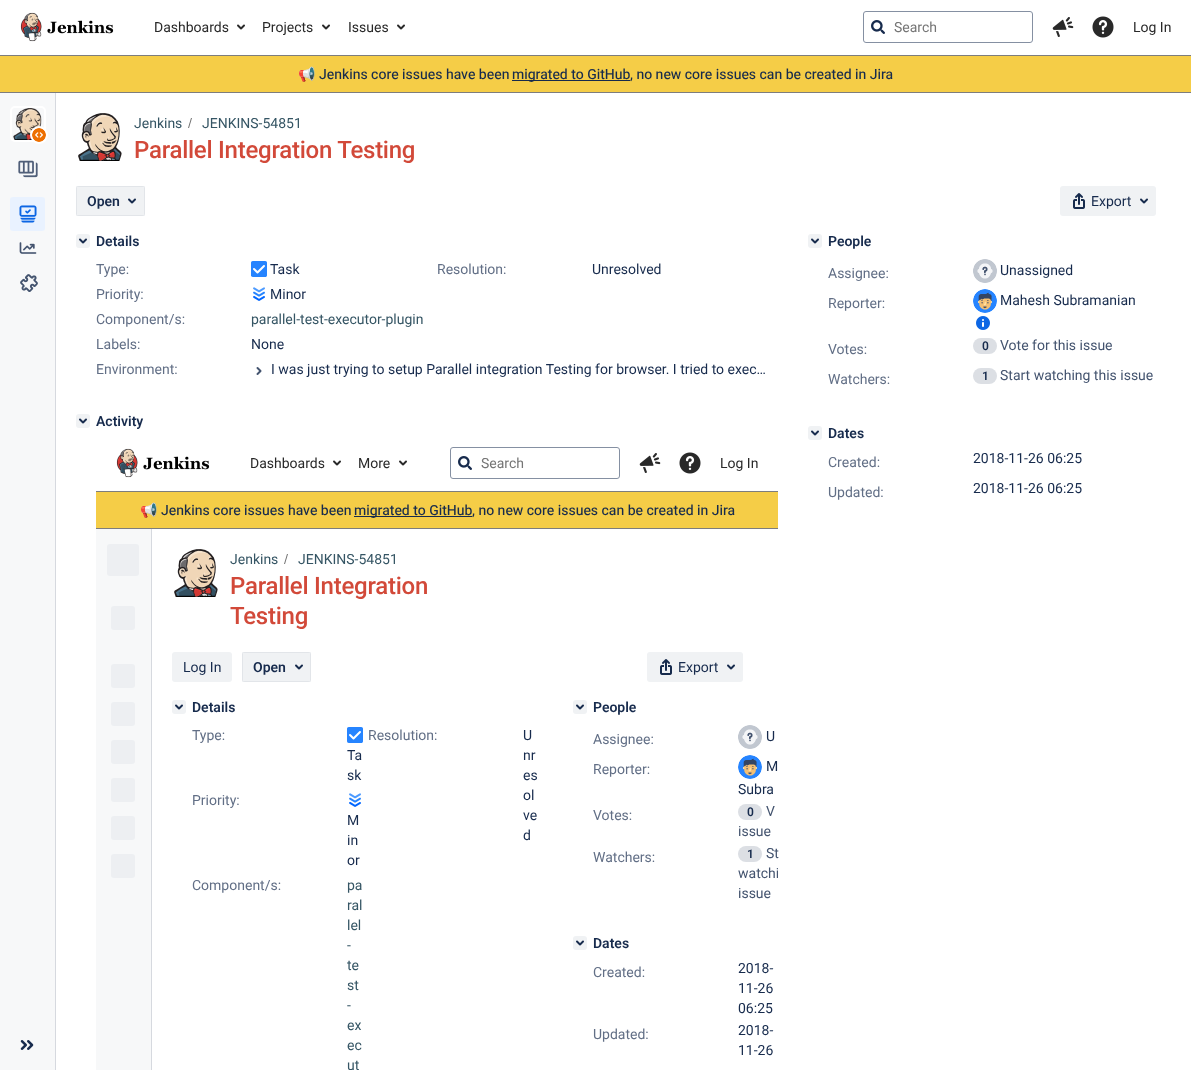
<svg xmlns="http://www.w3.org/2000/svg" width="1191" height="1070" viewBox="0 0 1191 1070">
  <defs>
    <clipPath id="clip1"><path d="M152 529h626v541H152z"/></clipPath>
  </defs>
  <rect width="100%" height="100%" fill="#fff"/>
  <path d="M0 55h1191v1H0z" fill="#7d7d7d"/>
  <image x="20" y="12" width="94" height="30" href="img/1.png"/>
  <image x="237" y="24" width="8" height="6" href="img/2.png"/>
  <image x="322" y="24" width="8" height="6" href="img/2.png"/>
  <image x="397" y="24" width="8" height="6" href="img/2.png"/>
  <rect x="863.5" y="11.5" width="169" height="31" rx="2.5" fill="none" stroke="#8590a2"/>
  <image x="871" y="20" width="14" height="14" href="img/3.png"/>
  <image x="1052" y="17" width="22" height="20" href="img/4.png"/>
  <image x="1092" y="16" width="22" height="22" href="img/5.png"/>
  <path d="M0 56h1191v36H0z" fill="#f5cd47"/>
  <path d="M0 92h1191v1H0z" fill="#7d7d7d"/>
  <path d="M512 80h118v1H512z" fill="#172b4d"/>
  <path d="M0 93h55v977H0z" fill="#f7f8f9"/>
  <path d="M55 93h1v977H55z" fill="#d6d9df"/>
  <rect x="11" y="107" width="34" height="34" rx="4" fill="none" stroke="#fff" stroke-width="2"/>
  <image x="13" y="108" width="29" height="32" href="img/6.png"/>
  <circle cx="39" cy="135" r="9" fill="#fff"/>
  <image x="32" y="128" width="14" height="14" href="img/7.png"/>
  <image x="18" y="160" width="20" height="18" href="img/8.png"/>
  <rect x="10" y="197" width="35" height="34" rx="3" fill="#e9f2ff"/>
  <image x="19" y="205" width="18" height="18" href="img/9.png"/>
  <image x="19" y="242" width="18" height="12" href="img/10.png"/>
  <image x="20" y="274" width="18" height="18" href="img/11.png"/>
  <image x="20" y="1040" width="14" height="10" href="img/12.png"/>
  <image x="78" y="113" width="44" height="48" href="img/13.png"/>
  <path d="M189 128L192 118H191L188 128Z" fill="#707070"/>
  <rect x="76" y="186" width="69" height="30" rx="3" fill="#f0f2f4"/>
  <path d="M76.5 186.5h68v29H76.5z" fill="none" stroke="#091e420f"/>
  <image x="128" y="198" width="8" height="6" href="img/14.png"/>
  <rect x="1060" y="186" width="96" height="30" rx="3" fill="#f0f2f4"/>
  <image x="1073" y="193" width="12" height="16" href="img/15.png"/>
  <image x="1140" y="198" width="8" height="6" href="img/14.png"/>
  <rect x="76" y="234" width="14" height="14" rx="3" fill="#f0f2f4"/>
  <image x="79" y="238" width="8" height="6" href="img/16.png"/>
  <image x="251" y="261" width="16" height="16" href="img/17.png"/>
  <image x="253" y="287" width="12" height="14" href="img/18.png"/>
  <image x="256" y="367" width="6" height="8" href="img/19.png"/>
  <rect x="76" y="414" width="14" height="14" rx="3" fill="#f0f2f4"/>
  <image x="79" y="418" width="8" height="6" href="img/16.png"/>
  <path d="M96 491h682v1H96z" fill="#7d7d7d"/>
  <image x="116" y="448" width="94" height="30" href="img/1.png"/>
  <image x="333" y="460" width="8" height="6" href="img/2.png"/>
  <image x="399" y="460" width="8" height="6" href="img/2.png"/>
  <rect x="450.5" y="447.5" width="169" height="31" rx="2.5" fill="none" stroke="#8590a2"/>
  <image x="458" y="456" width="14" height="14" href="img/3.png"/>
  <image x="639" y="453" width="22" height="20" href="img/4.png"/>
  <image x="679" y="452" width="22" height="22" href="img/5.png"/>
  <path d="M96 492h682v36H96z" fill="#f5cd47"/>
  <path d="M96 528h682v1H96z" fill="#7d7d7d"/>
  <path d="M354 516h118v1H354z" fill="#172b4d"/>
  <path d="M96 529h55v541H96z" fill="#f7f8f9"/>
  <path d="M151 529h1v541H151z" fill="#d6d9df"/>
  <rect x="107" y="544" width="32" height="32" rx="3" fill="#edeff2"/>
  <rect x="111" y="606" width="24" height="24" rx="3" fill="#edeff2"/>
  <rect x="111" y="664" width="24" height="24" rx="3" fill="#edeff2"/>
  <rect x="111" y="702" width="24" height="24" rx="3" fill="#edeff2"/>
  <rect x="111" y="740" width="24" height="24" rx="3" fill="#edeff2"/>
  <rect x="111" y="778" width="24" height="24" rx="3" fill="#edeff2"/>
  <rect x="111" y="816" width="24" height="24" rx="3" fill="#edeff2"/>
  <rect x="111" y="854" width="24" height="24" rx="3" fill="#edeff2"/>
  <image x="174" y="549" width="44" height="48" href="img/13.png"/>
  <path d="M285 564L288 554H287L284 564Z" fill="#707070"/>
  <rect x="172" y="652" width="60" height="30" rx="3" fill="#f0f2f4"/>
  <rect x="242" y="652" width="69" height="30" rx="3" fill="#f0f2f4"/>
  <path d="M242.5 652.5h68v29H242.5z" fill="none" stroke="#091e420f"/>
  <image x="295" y="664" width="8" height="6" href="img/14.png"/>
  <rect x="647" y="652" width="96" height="30" rx="3" fill="#f0f2f4"/>
  <image x="660" y="659" width="12" height="16" href="img/15.png"/>
  <image x="727" y="664" width="8" height="6" href="img/14.png"/>
  <rect x="172" y="700" width="14" height="14" rx="3" fill="#f0f2f4"/>
  <image x="175" y="704" width="8" height="6" href="img/16.png"/>
  <image x="347" y="727" width="16" height="16" href="img/20.png"/>
  <image x="349" y="793" width="12" height="14" href="img/18.png"/>
  <rect x="573" y="700" width="14" height="14" rx="3" fill="#f0f2f4"/>
  <image x="576" y="704" width="8" height="6" href="img/16.png"/>
  <image x="738" y="725" width="24" height="24" href="img/21.png"/>
  <image x="738" y="755" width="24" height="24" href="img/22.png"/>
  <rect x="738" y="804" width="24" height="16" rx="8" fill="#dcdfe4"/>
  <rect x="738" y="846" width="24" height="16" rx="8" fill="#dcdfe4"/>
  <rect x="573" y="936" width="14" height="14" rx="3" fill="#f0f2f4"/>
  <image x="576" y="940" width="8" height="6" href="img/16.png"/>
  <rect x="808" y="234" width="14" height="14" rx="3" fill="#f0f2f4"/>
  <image x="811" y="238" width="8" height="6" href="img/16.png"/>
  <image x="973" y="259" width="24" height="24" href="img/23.png"/>
  <image x="973" y="289" width="24" height="24" href="img/24.png"/>
  <image x="976" y="316" width="14" height="14" href="img/25.png"/>
  <rect x="973" y="338" width="24" height="16" rx="8" fill="#dcdfe4"/>
  <rect x="973" y="368" width="24" height="16" rx="8" fill="#dcdfe4"/>
  <rect x="808" y="426" width="14" height="14" rx="3" fill="#f0f2f4"/>
  <image x="811" y="430" width="8" height="6" href="img/16.png"/>
  <g font-family="'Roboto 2'" font-size="14" fill="#292929">
    <text x="154" y="32">Dashboards</text>
    <text x="262" y="32">Projects</text>
    <text x="348" y="32">Issues</text>
  </g>
  <text x="894" y="32" font-family="'Roboto 2'" font-size="14" fill="#757575">Search</text>
  <text x="1133" y="32" font-family="'Roboto 2'" font-size="14" fill="#292929">Log In</text>
  <text x="298" y="79" font-family="Noto Color Emoji" font-size="14" fill="#172b4d">📢</text>
  <g font-family="Roboto" font-size="14" fill="#172b4d">
    <text x="319" y="79">Jenkins core issues have been</text>
    <text x="512" y="79">migrated to GitHub</text>
    <text x="630" y="79">, no new core issues can be created in Jira</text>
  </g>
  <g font-family="'Roboto 2'" font-size="14" fill="#355564">
    <text x="134" y="128">Jenkins</text>
    <text x="202" y="128">JENKINS-54851</text>
  </g>
  <text x="134" y="158" font-family="Roboto" font-size="24" font-weight="500" letter-spacing="-0.25" fill="#d24939">Parallel Integration Testing</text>
  <text x="87" y="206" font-family="Roboto" font-size="14" font-weight="600" fill="#172b4d">Open</text>
  <text x="1091" y="206" font-family="'Roboto 2'" font-size="14" fill="#172b4d">Export</text>
  <text x="96" y="246" font-family="Roboto" font-size="14" font-weight="600" fill="#172b4d">Details</text>
  <text x="96" y="274" font-family="'Roboto 2'" font-size="14" fill="#626f86">Type:</text>
  <text x="270" y="274" font-family="'Roboto 2'" font-size="14" fill="#172b4d">Task</text>
  <text x="437" y="274" font-family="'Roboto 2'" font-size="14" fill="#626f86">Resolution:</text>
  <text x="592" y="274" font-family="'Roboto 2'" font-size="14" fill="#172b4d">Unresolved</text>
  <text x="96" y="299" font-family="'Roboto 2'" font-size="14" fill="#626f86">Priority:</text>
  <text x="270" y="299" font-family="'Roboto 2'" font-size="14" fill="#172b4d">Minor</text>
  <text x="96" y="324" font-family="'Roboto 2'" font-size="14" fill="#626f86">Component/s:</text>
  <text x="251" y="324" font-family="'Roboto 2'" font-size="14" fill="#355564">parallel-test-executor-plugin</text>
  <text x="96" y="349" font-family="'Roboto 2'" font-size="14" fill="#626f86">Labels:</text>
  <text x="251" y="349" font-family="'Roboto 2'" font-size="14" fill="#172b4d">None</text>
  <text x="96" y="374" font-family="'Roboto 2'" font-size="14" fill="#626f86">Environment:</text>
  <text x="271" y="374" font-family="'Roboto 2'" font-size="14" fill="#172b4d">I was just trying to setup Parallel integration Testing for browser. I tried to exec…</text>
  <text x="96" y="426" font-family="Roboto" font-size="14" font-weight="600" fill="#172b4d">Activity</text>
  <g font-family="'Roboto 2'" font-size="14" fill="#292929">
    <text x="250" y="468">Dashboards</text>
    <text x="358" y="468">More</text>
  </g>
  <text x="481" y="468" font-family="'Roboto 2'" font-size="14" fill="#757575">Search</text>
  <text x="720" y="468" font-family="'Roboto 2'" font-size="14" fill="#292929">Log In</text>
  <text x="140" y="515" font-family="Noto Color Emoji" font-size="14" fill="#172b4d">📢</text>
  <g font-family="Roboto" font-size="14" fill="#172b4d">
    <text x="161" y="515">Jenkins core issues have been</text>
    <text x="354" y="515">migrated to GitHub</text>
    <text x="472" y="515">, no new core issues can be created in Jira</text>
  </g>
  <g font-family="'Roboto 2'" font-size="14" fill="#355564">
    <text x="230" y="564">Jenkins</text>
    <text x="298" y="564">JENKINS-54851</text>
  </g>
  <g font-family="Roboto" font-size="24" font-weight="500" letter-spacing="-0.25" fill="#d24939">
    <text x="230" y="594">Parallel Integration</text>
    <text x="230" y="624">Testing</text>
  </g>
  <text x="183" y="672" font-family="'Roboto 2'" font-size="14" fill="#172b4d">Log In</text>
  <text x="253" y="672" font-family="Roboto" font-size="14" font-weight="600" fill="#172b4d">Open</text>
  <text x="678" y="672" font-family="'Roboto 2'" font-size="14" fill="#172b4d">Export</text>
  <text x="192" y="712" font-family="Roboto" font-size="14" font-weight="600" fill="#172b4d">Details</text>
  <text x="192" y="740" font-family="'Roboto 2'" font-size="14" fill="#626f86">Type:</text>
  <g font-family="'Roboto 2'" font-size="14" fill="#172b4d">
    <text x="347" y="760">Ta</text>
    <text x="347" y="780">sk</text>
  </g>
  <text x="368" y="740" font-family="'Roboto 2'" font-size="14" fill="#626f86">Resolution:</text>
  <g font-family="'Roboto 2'" font-size="14" fill="#172b4d">
    <text x="523" y="740">U</text>
    <text x="523" y="760">nr</text>
    <text x="523" y="780">es</text>
    <text x="523" y="800">ol</text>
    <text x="523" y="820">ve</text>
    <text x="523" y="840">d</text>
  </g>
  <text x="192" y="805" font-family="'Roboto 2'" font-size="14" fill="#626f86">Priority:</text>
  <g font-family="'Roboto 2'" font-size="14" fill="#172b4d">
    <text x="347" y="825">M</text>
    <text x="347" y="845">in</text>
    <text x="347" y="865">or</text>
  </g>
  <text x="192" y="890" font-family="'Roboto 2'" font-size="14" fill="#626f86">Component/s:</text>
  <g font-family="'Roboto 2'" font-size="14" fill="#355564">
    <text x="347" y="890">pa</text>
    <text x="347" y="910">ral</text>
    <text x="347" y="930">lel</text>
    <text x="347" y="950">-</text>
    <text x="347" y="970">te</text>
    <text x="347" y="990">st</text>
    <text x="347" y="1010">-</text>
    <text x="347" y="1030">ex</text>
    <text x="347" y="1050">ec</text>
    <text x="347" y="1070">ut</text>
  </g>
  <text x="593" y="712" font-family="Roboto" font-size="14" font-weight="600" fill="#172b4d">People</text>
  <text x="593" y="744" font-family="'Roboto 2'" font-size="14" fill="#626f86">Assignee:</text>
  <text x="766" y="741" font-family="'Roboto 2'" font-size="14" fill="#172b4d">U</text>
  <text x="593" y="774" font-family="'Roboto 2'" font-size="14" fill="#626f86">Reporter:</text>
  <g font-family="'Roboto 2'" font-size="14" fill="#172b4d">
    <text x="766" y="771">M</text>
    <text x="738" y="794">Subra</text>
  </g>
  <text x="593" y="820" font-family="'Roboto 2'" font-size="14" fill="#626f86">Votes:</text>
  <text x="747" y="816" font-family="Roboto" font-size="12" font-weight="600" fill="#172b4d">0</text>
  <g font-family="'Roboto 2'" font-size="14" fill="#44546f">
    <text x="766" y="816">V</text>
    <text x="738" y="836">issue</text>
  </g>
  <text x="593" y="862" font-family="'Roboto 2'" font-size="14" fill="#626f86">Watchers:</text>
  <text x="747" y="858" font-family="Roboto" font-size="12" font-weight="600" fill="#172b4d">1</text>
  <text x="766" y="858" font-family="'Roboto 2'" font-size="14" fill="#44546f">St</text>
  <g clip-path="url(#clip1)">
    <text x="738" y="878" font-family="'Roboto 2'" font-size="14" fill="#44546f">watchi</text>
  </g>
  <text x="738" y="898" font-family="'Roboto 2'" font-size="14" fill="#44546f">issue</text>
  <text x="593" y="948" font-family="Roboto" font-size="14" font-weight="600" fill="#172b4d">Dates</text>
  <text x="593" y="977" font-family="'Roboto 2'" font-size="14" fill="#626f86">Created:</text>
  <g font-family="'Roboto 2'" font-size="14" fill="#172b4d">
    <text x="738" y="973">2018-</text>
    <text x="738" y="993">11-26</text>
    <text x="738" y="1013">06:25</text>
  </g>
  <text x="593" y="1039" font-family="'Roboto 2'" font-size="14" fill="#626f86">Updated:</text>
  <g font-family="'Roboto 2'" font-size="14" fill="#172b4d">
    <text x="738" y="1035">2018-</text>
    <text x="738" y="1055">11-26</text>
  </g>
  <text x="828" y="246" font-family="Roboto" font-size="14" font-weight="600" fill="#172b4d">People</text>
  <text x="828" y="278" font-family="'Roboto 2'" font-size="14" fill="#626f86">Assignee:</text>
  <text x="1000" y="275" font-family="'Roboto 2'" font-size="14" fill="#172b4d">Unassigned</text>
  <text x="828" y="308" font-family="'Roboto 2'" font-size="14" fill="#626f86">Reporter:</text>
  <text x="1000" y="305" font-family="'Roboto 2'" font-size="14" fill="#172b4d">Mahesh Subramanian</text>
  <text x="828" y="354" font-family="'Roboto 2'" font-size="14" fill="#626f86">Votes:</text>
  <text x="982" y="350" font-family="Roboto" font-size="12" font-weight="600" fill="#172b4d">0</text>
  <text x="1000" y="350" font-family="'Roboto 2'" font-size="14" fill="#44546f">Vote for this issue</text>
  <text x="828" y="384" font-family="'Roboto 2'" font-size="14" fill="#626f86">Watchers:</text>
  <text x="982" y="380" font-family="Roboto" font-size="12" font-weight="600" fill="#172b4d">1</text>
  <text x="1000" y="380" font-family="'Roboto 2'" font-size="14" fill="#44546f">Start watching this issue</text>
  <text x="828" y="438" font-family="Roboto" font-size="14" font-weight="600" fill="#172b4d">Dates</text>
  <text x="828" y="467" font-family="'Roboto 2'" font-size="14" fill="#626f86">Created:</text>
  <text x="973" y="463" font-family="'Roboto 2'" font-size="14" fill="#172b4d">2018-11-26 06:25</text>
  <text x="828" y="497" font-family="'Roboto 2'" font-size="14" fill="#626f86">Updated:</text>
  <text x="973" y="493" font-family="'Roboto 2'" font-size="14" fill="#172b4d">2018-11-26 06:25</text>
</svg>
